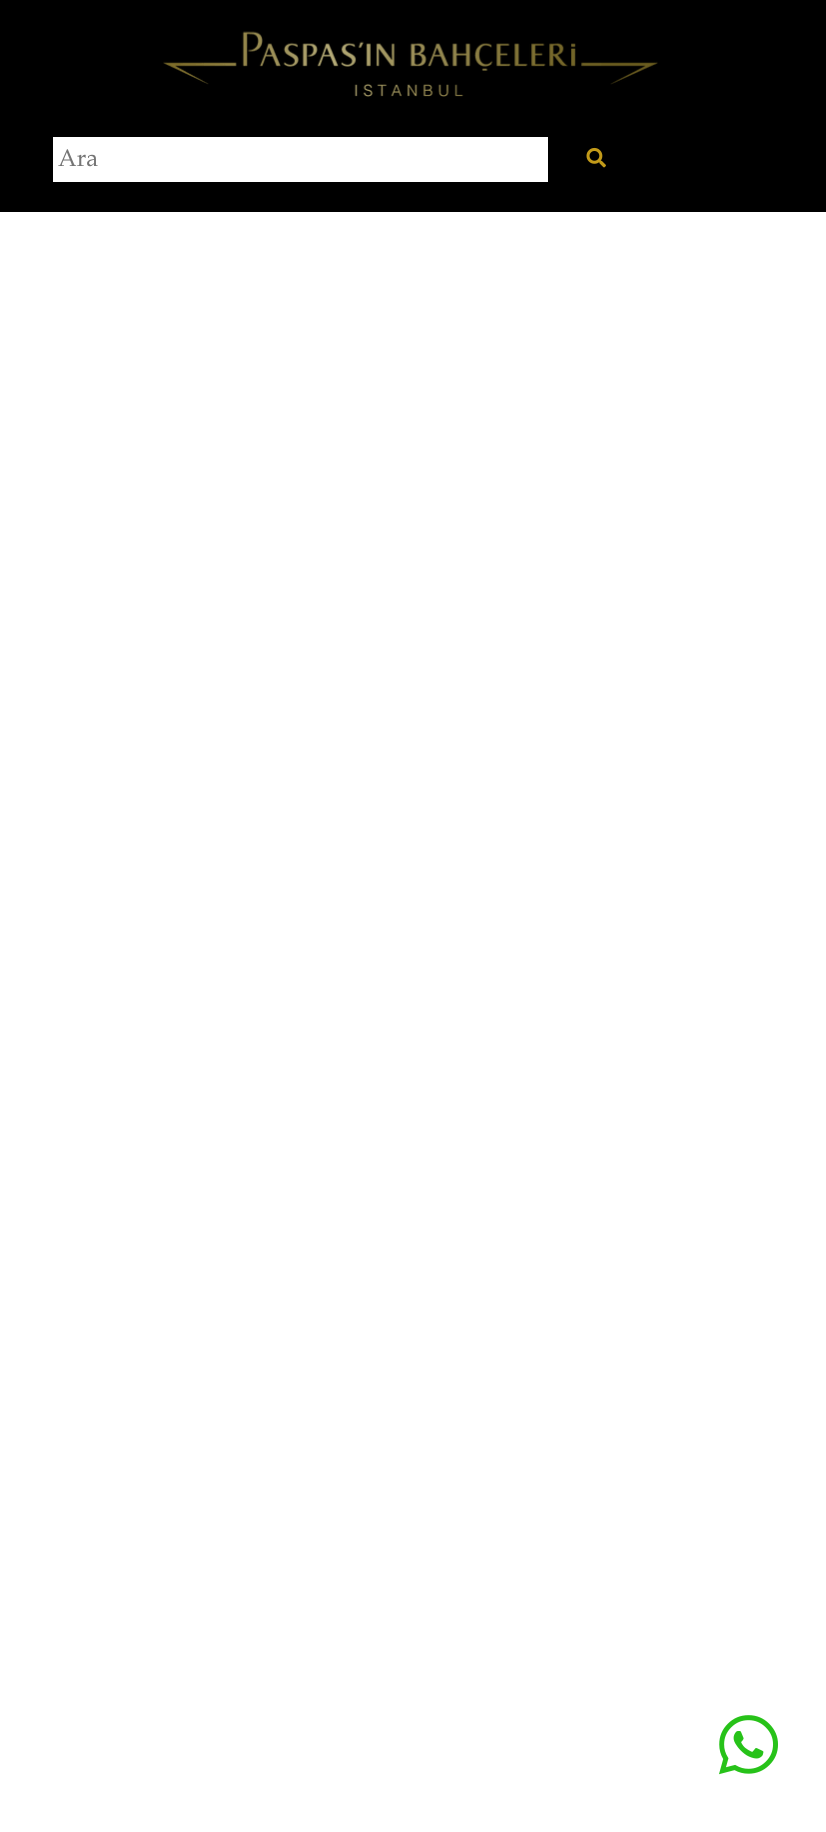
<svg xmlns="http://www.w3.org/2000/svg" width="826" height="1832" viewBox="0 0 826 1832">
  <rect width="100%" height="100%" fill="#fff"/>
  <path d="M0 0h826v212H0z" fill="#000"/>
  <image x="163" y="31" width="495" height="66" href="img/1.png"/>
  <path d="M53 137h495v45H53z" fill="#fff"/>
  <image x="586" y="147" width="20" height="21" href="img/2.png"/>
  <image x="719" y="1715" width="59" height="60" href="img/3.png"/>
  <text x="58" y="166" font-family="Palatino" font-size="24" fill="#757575">Ara</text>
</svg>
